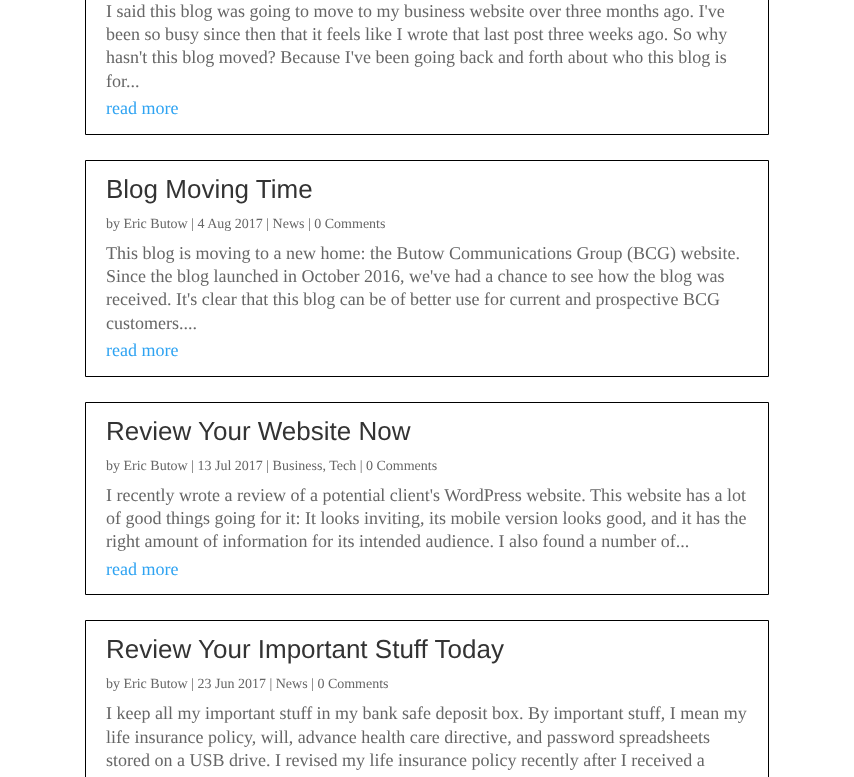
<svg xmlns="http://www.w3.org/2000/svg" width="854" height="777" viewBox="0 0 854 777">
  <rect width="100%" height="100%" fill="#fff"/>
  <path d="M85.5 -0.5h683v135H85.5z" fill="none" stroke="#000"/>
  <path d="M85.5 160.5h683v216H85.5z" fill="none" stroke="#000"/>
  <path d="M85.5 402.5h683v192H85.5z" fill="none" stroke="#000"/>
  <path d="M85.5 620.5h683v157H85.5z" fill="none" stroke="#000"/>
  <g font-family="Liberation Serif" font-size="18" fill="#666">
    <text x="106" y="17">I said this blog was going to move to my business website over three months ago. I've</text>
    <text x="106" y="40">been so busy since then that it feels like I wrote that last post three weeks ago. So why</text>
    <text x="106" y="63">hasn't this blog moved? Because I've been going back and forth about who this blog is</text>
    <text x="106" y="87">for...</text>
  </g>
  <text x="106" y="114" font-family="Liberation Serif" font-size="18" fill="#2ea3f2">read more</text>
  <text x="106" y="198" font-family="Liberation Sans" font-size="26" fill="#333">Blog Moving Time</text>
  <text x="106" y="228" font-family="Liberation Serif" font-size="14" fill="#666">by Eric Butow | 4 Aug 2017 | News | 0 Comments</text>
  <g font-family="Liberation Serif" font-size="18" fill="#666">
    <text x="106" y="259">This blog is moving to a new home: the Butow Communications Group (BCG) website.</text>
    <text x="106" y="282">Since the blog launched in October 2016, we've had a chance to see how the blog was</text>
    <text x="106" y="305">received. It's clear that this blog can be of better use for current and prospective BCG</text>
    <text x="106" y="329">customers....</text>
  </g>
  <text x="106" y="356" font-family="Liberation Serif" font-size="18" fill="#2ea3f2">read more</text>
  <text x="106" y="440" font-family="Liberation Sans" font-size="26" fill="#333">Review Your Website Now</text>
  <text x="106" y="470" font-family="Liberation Serif" font-size="14" fill="#666">by Eric Butow | 13 Jul 2017 | Business, Tech | 0 Comments</text>
  <g font-family="Liberation Serif" font-size="18" fill="#666">
    <text x="106" y="501">I recently wrote a review of a potential client's WordPress website. This website has a lot</text>
    <text x="106" y="524">of good things going for it: It looks inviting, its mobile version looks good, and it has the</text>
    <text x="106" y="547">right amount of information for its intended audience. I also found a number of...</text>
  </g>
  <text x="106" y="575" font-family="Liberation Serif" font-size="18" fill="#2ea3f2">read more</text>
  <text x="106" y="658" font-family="Liberation Sans" font-size="26" fill="#333">Review Your Important Stuff Today</text>
  <text x="106" y="688" font-family="Liberation Serif" font-size="14" fill="#666">by Eric Butow | 23 Jun 2017 | News | 0 Comments</text>
  <g font-family="Liberation Serif" font-size="18" fill="#666">
    <text x="106" y="719">I keep all my important stuff in my bank safe deposit box. By important stuff, I mean my</text>
    <text x="106" y="743">life insurance policy, will, advance health care directive, and password spreadsheets</text>
    <text x="106" y="766">stored on a USB drive. I revised my life insurance policy recently after I received a</text>
  </g>
</svg>
